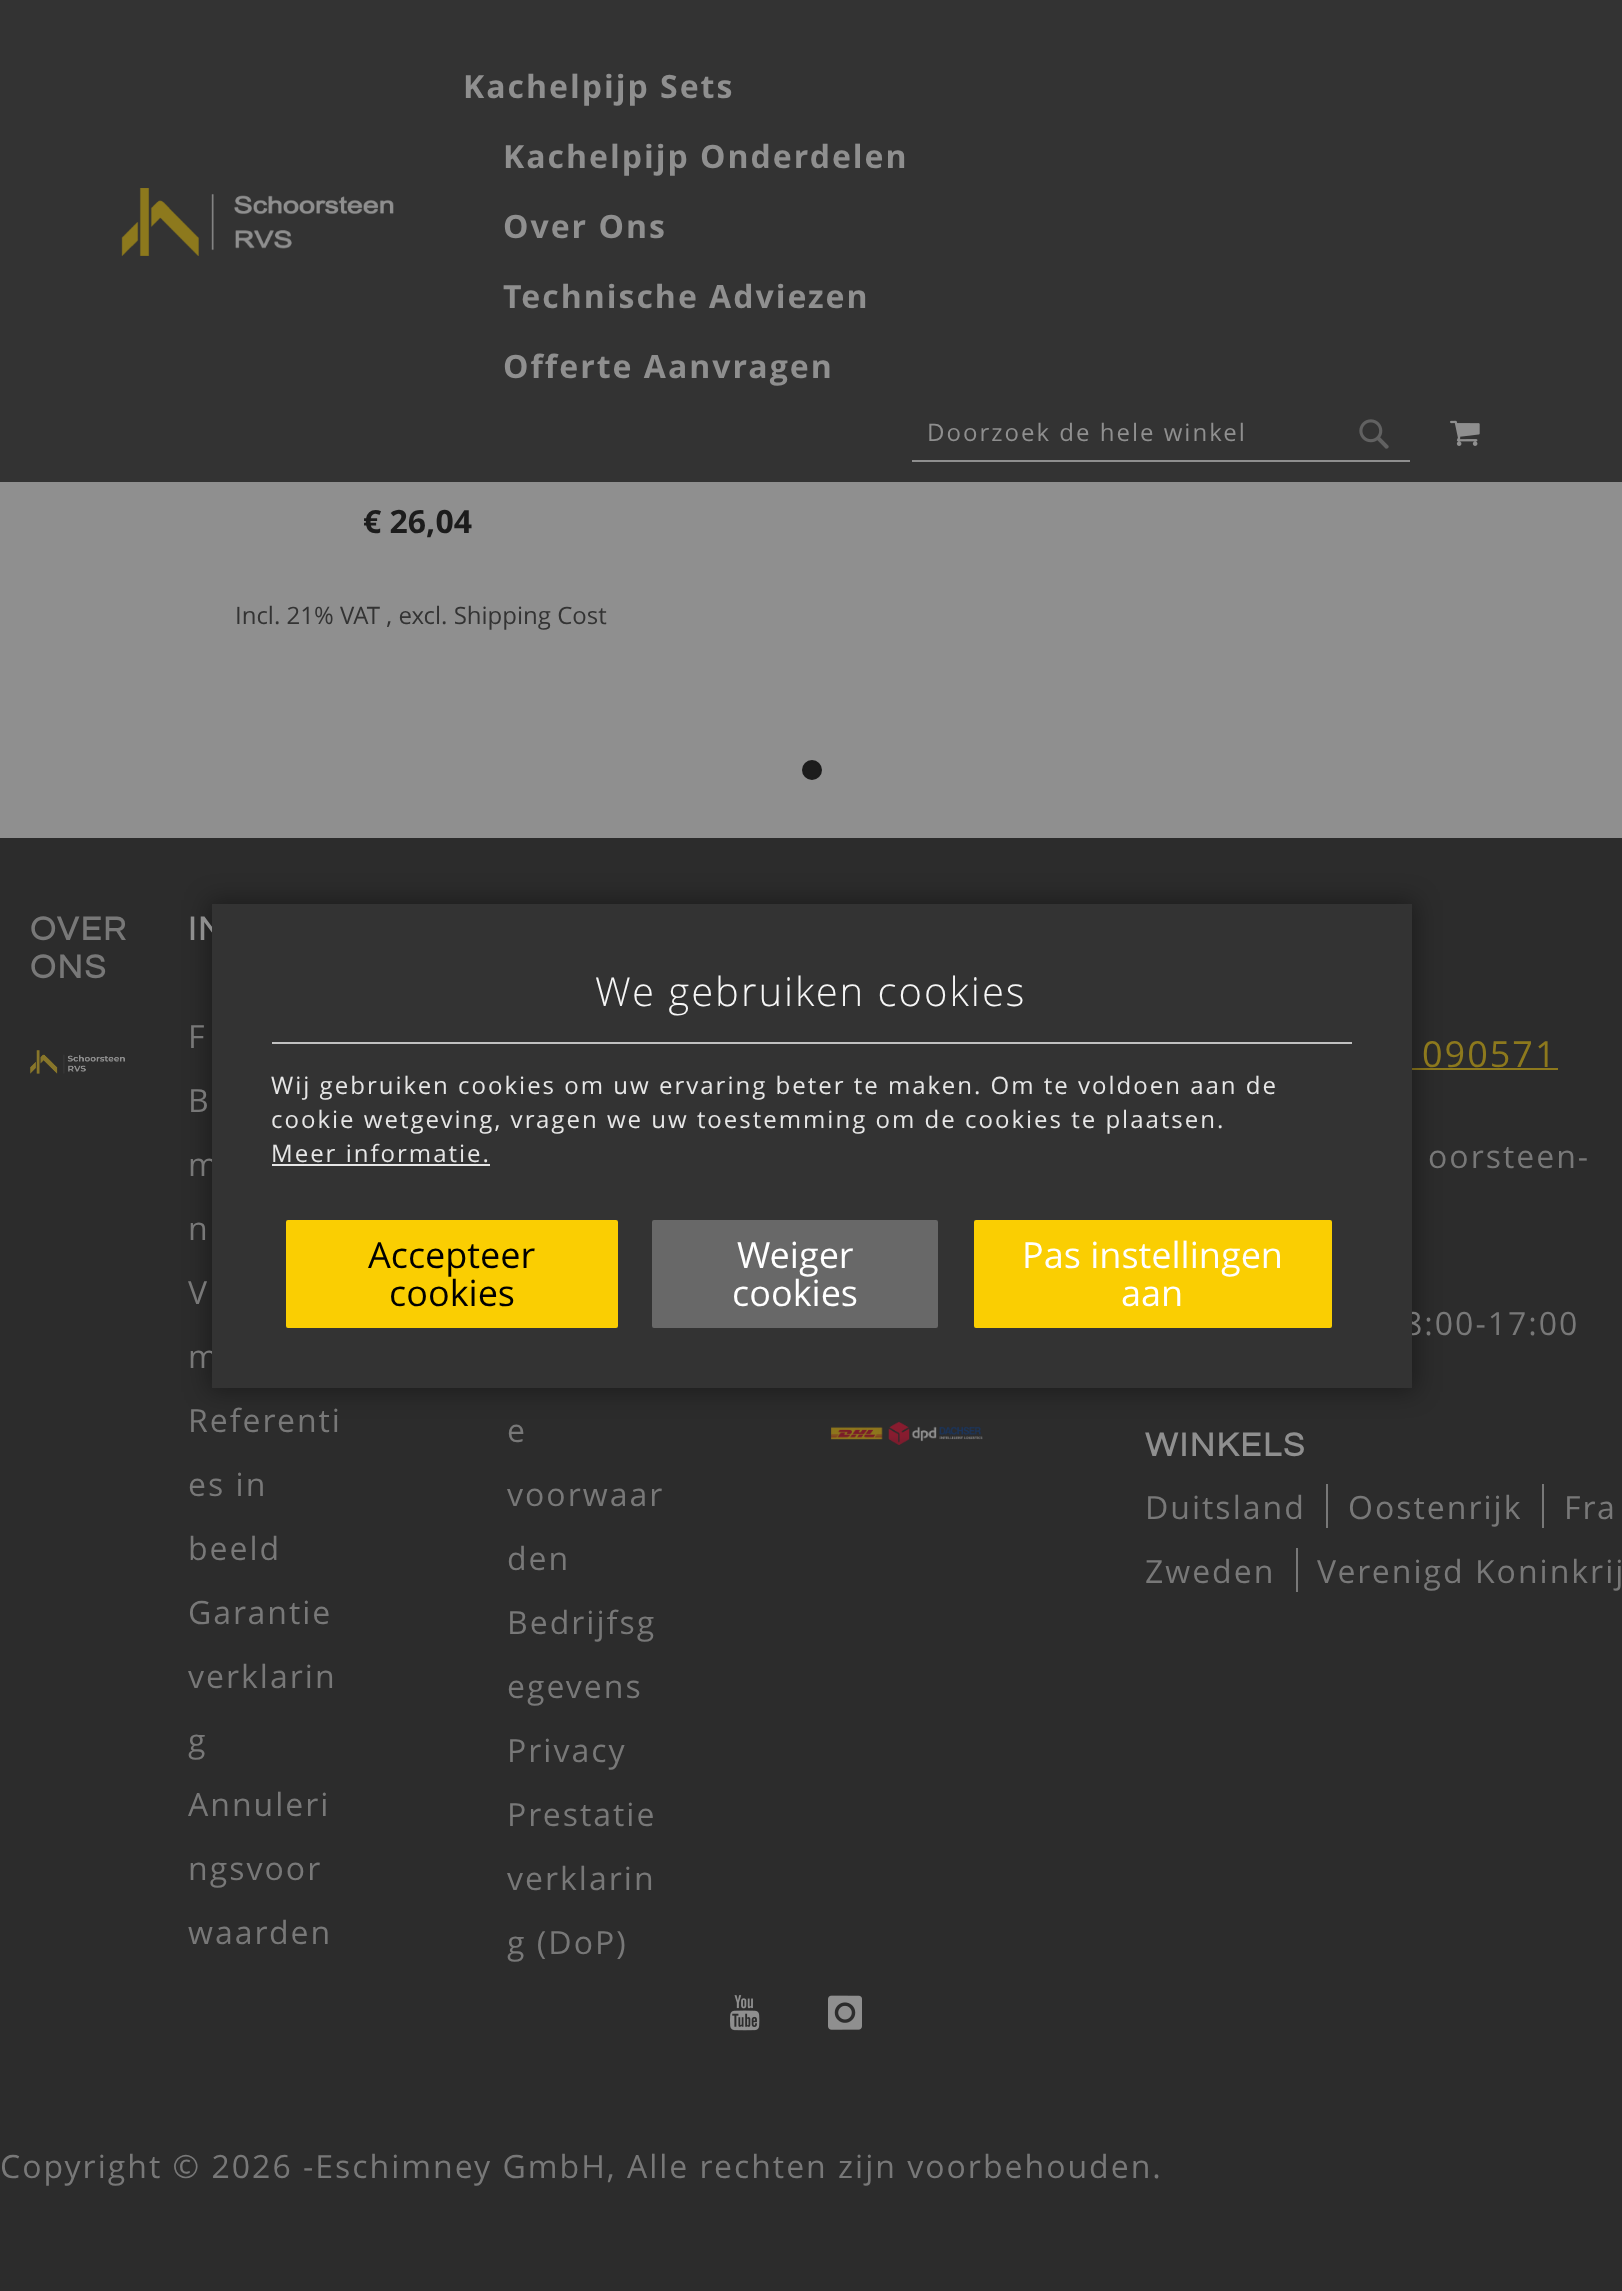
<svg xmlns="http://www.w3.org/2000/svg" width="1622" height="2291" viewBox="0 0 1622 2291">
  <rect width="100%" height="100%" fill="#8f8f8f"/>
  <path d="M0 0h1622v482H0z" fill="#333"/>
  <image x="121" y="188" width="273" height="68" href="img/1.png"/>
  <path d="M912 460h498v2H912z" fill="#8f8f8f"/>
  <image x="1359" y="419" width="30" height="30" href="img/2.png"/>
  <image x="1450" y="420" width="30" height="26" href="img/3.png"/>
  <circle cx="812" cy="770" r="9" fill="#1c1c1c" stroke="#1c1c1c" stroke-width="2"/>
  <path d="M0 838h1622v1453H0z" fill="#2c2c2c"/>
  <image x="30" y="1050" width="95" height="24" href="img/4.png"/>
  <image x="831" y="1421" width="152" height="24" href="img/5.png"/>
  <path d="M1412 1068h146v2H1412z" fill="#8d791d"/>
  <path d="M1326 1484h2v44H1326z" fill="#787878"/>
  <path d="M1542 1484h2v44H1542z" fill="#787878"/>
  <path d="M1296 1548h2v44H1296z" fill="#787878"/>
  <image x="730" y="1995" width="30" height="36" href="img/6.png"/>
  <image x="828" y="1995" width="34" height="35" href="img/7.png"/>
  <path d="M208 900h1208v492H208z" fill="#00000059" filter="blur(12px)"/>
  <g font-family="Open Sans" font-size="32" font-weight="bold" letter-spacing="2" fill="#8f8f8f">
    <text x="463" y="98">Kachelpijp Sets</text>
    <text x="503" y="168">Kachelpijp Onderdelen</text>
    <text x="503" y="238">Over Ons</text>
    <text x="503" y="308">Technische Adviezen</text>
    <text x="503" y="378">Offerte Aanvragen</text>
  </g>
  <text x="927" y="441" font-family="Open Sans" font-size="24" letter-spacing="2" fill="#8f8f8f">Doorzoek de hele winkel</text>
  <text x="363" y="533" font-family="Open Sans" font-size="32" font-weight="bold" fill="#1c1c1c">€ 26,04</text>
  <text x="235" y="624" font-family="Open Sans" font-size="24" fill="#333">Incl. 21% VAT , excl. Shipping Cost</text>
  <g font-family="Questrial" font-size="34" font-weight="bold" letter-spacing="2" fill="#787878">
    <text x="30" y="940">OVER</text>
    <text x="30" y="978">ONS</text>
  </g>
  <text x="188" y="940" font-family="Questrial" font-size="34" font-weight="bold" letter-spacing="2" fill="#8f8f8f">IN</text>
  <g font-family="Open Sans" font-size="32" letter-spacing="2" fill="#787878">
    <text x="188" y="1048">F</text>
    <text x="188" y="1112">B</text>
    <text x="188" y="1176">m</text>
    <text x="188" y="1240">n</text>
    <text x="188" y="1304">V</text>
    <text x="188" y="1368">m</text>
    <text x="188" y="1432">Referenti</text>
    <text x="188" y="1496">es in</text>
    <text x="188" y="1560">beeld</text>
    <text x="188" y="1624">Garantie</text>
    <text x="188" y="1688">verklarin</text>
    <text x="188" y="1752">g</text>
    <text x="188" y="1816">Annuleri</text>
    <text x="188" y="1880">ngsvoor</text>
    <text x="188" y="1944">waarden</text>
    <text x="507" y="1442">e</text>
    <text x="507" y="1506">voorwaar</text>
    <text x="507" y="1570">den</text>
    <text x="507" y="1634">Bedrijfsg</text>
    <text x="507" y="1698">egevens</text>
    <text x="507" y="1762">Privacy</text>
    <text x="507" y="1826">Prestatie</text>
    <text x="507" y="1890">verklarin</text>
    <text x="507" y="1954">g (DoP)</text>
  </g>
  <text x="1422" y="1067" font-family="Open Sans" font-size="36" letter-spacing="2" fill="#8d791d">090571</text>
  <g font-family="Open Sans" font-size="32" letter-spacing="2" fill="#787878">
    <text x="1428" y="1168">oorsteen-</text>
    <text x="1404" y="1335">8:00-17:00</text>
  </g>
  <text x="1145" y="1456" font-family="Questrial" font-size="34" font-weight="bold" letter-spacing="2" fill="#8f8f8f">WINKELS</text>
  <g font-family="Open Sans" font-size="32" letter-spacing="2" fill="#787878">
    <text x="1145" y="1519">Duitsland</text>
    <text x="1348" y="1519">Oostenrijk</text>
    <text x="1564" y="1519">Fra</text>
    <text x="1145" y="1583">Zweden</text>
    <text x="1317" y="1583">Verenigd Koninkrij</text>
    <text x="0" y="2178">Copyright © 2026 -Eschimney GmbH, Alle rechten zijn voorbehouden.</text>
  </g>
  <path d="M212 904h1200v484H212z" fill="#333"/>
  <path d="M272 1042h1080v2H272z" fill="#c1c1c1"/>
  <text x="595" y="1006" font-family="Open Sans" font-size="40" font-weight="300" letter-spacing="2" fill="#f6f6f6">We gebruiken cookies</text>
  <g font-family="Open Sans" font-size="24" letter-spacing="2" fill="#e6e6e6">
    <text x="271" y="1094">Wij gebruiken cookies om uw ervaring beter te maken. Om te voldoen aan de</text>
    <text x="271" y="1128">cookie wetgeving, vragen we uw toestemming om de cookies te plaatsen.</text>
    <text x="271" y="1162">Meer informatie.</text>
  </g>
  <path d="M272 1164h218v2H272z" fill="#e6e6e6"/>
  <rect x="287" y="1221" width="330" height="106" rx="1" fill="#face02" stroke="#face02" stroke-width="2"/>
  <g font-family="Open Sans" font-size="36" fill="#000">
    <text x="368" y="1268">Accepteer</text>
    <text x="389" y="1306">cookies</text>
  </g>
  <rect x="653" y="1221" width="284" height="106" rx="1" fill="#686868" stroke="#686868" stroke-width="2"/>
  <g font-family="Open Sans" font-size="36" fill="#fff">
    <text x="737" y="1268">Weiger</text>
    <text x="732" y="1306">cookies</text>
  </g>
  <rect x="975" y="1221" width="356" height="106" rx="1" fill="#face02" stroke="#face02" stroke-width="2"/>
  <g font-family="Open Sans" font-size="36" fill="#fff">
    <text x="1022" y="1268">Pas instellingen</text>
    <text x="1121" y="1306">aan</text>
  </g>
</svg>
